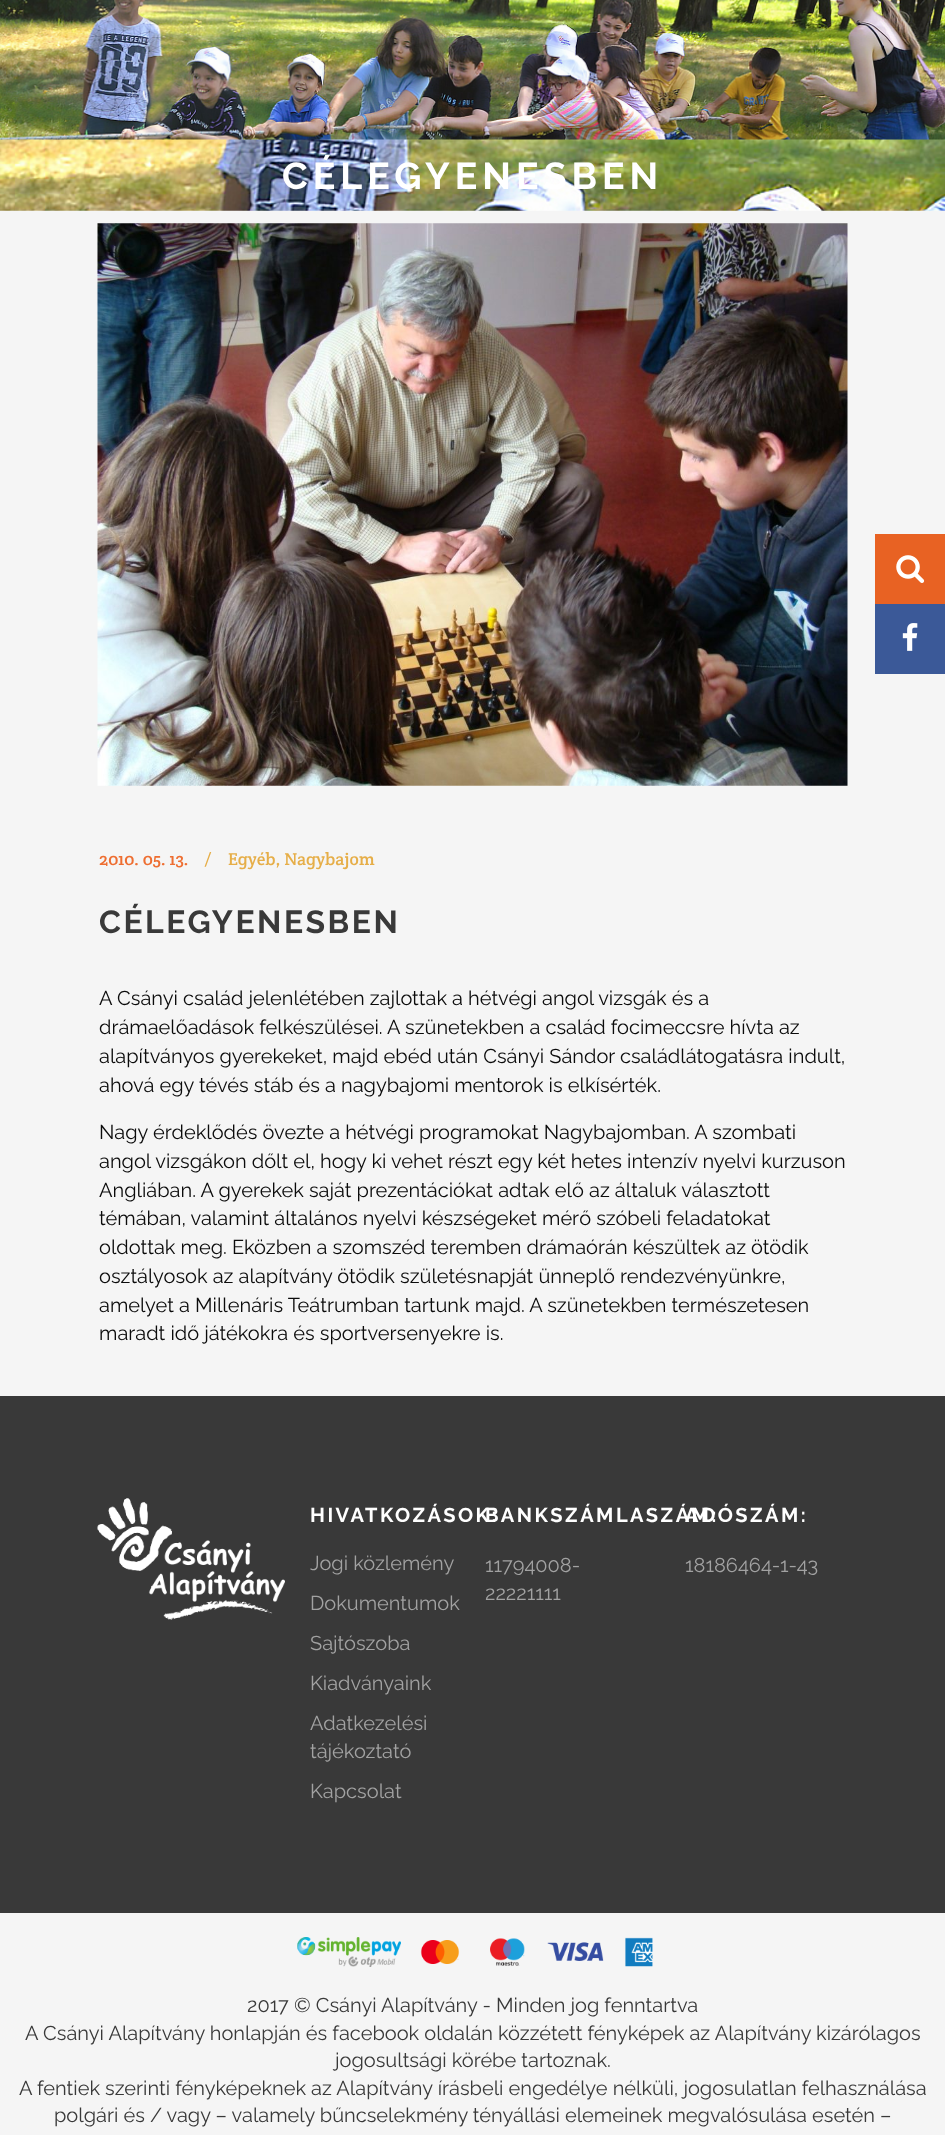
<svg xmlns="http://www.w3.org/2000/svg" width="945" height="2135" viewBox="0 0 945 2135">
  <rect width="100%" height="100%" fill="#f5f5f5"/>
  <image x="0" y="139" width="945" height="72" href="img/1.png"/>
  <image x="0" y="0" width="945" height="140" href="img/2.png"/>
  <image x="97" y="223" width="751" height="563" href="img/3.png"/>
  <path d="M0 1396h945v517H0z" fill="#393939"/>
  <image x="97" y="1498" width="188" height="122" href="img/4.png"/>
  <image x="297" y="1937" width="356" height="30" href="img/5.png"/>
  <path d="M875 534h70v70H875z" fill="#e86223"/>
  <image x="896" y="555" width="29" height="28" href="img/6.png"/>
  <path d="M875 604h70v70H875z" fill="#3b5998"/>
  <image x="902" y="623" width="16" height="28" href="img/7.png"/>
  <text x="282" y="189" font-family="Raleway" font-size="37.5" font-weight="bold" letter-spacing="5" fill="#fff">CÉLEGYENESBEN</text>
  <text x="99" y="865" font-family="Crete Round" font-size="17.5" fill="#ee6e31">2010. 05. 13.</text>
  <g font-family="Crete Round" font-size="17.5" fill="#e6ae48">
    <text x="204" y="865">/</text>
    <text x="228" y="865">Egyéb, Nagybajom</text>
  </g>
  <text x="99" y="933" font-family="Raleway" font-size="31.9" font-weight="bold" letter-spacing="2.5" fill="#393939">CÉLEGYENESBEN</text>
  <g font-family="Raleway" font-size="20" fill="#0b0b0b">
    <text x="99" y="1005">A Csányi család jelenlétében zajlottak a hétvégi angol vizsgák és a</text>
    <text x="99" y="1034">drámaelőadások felkészülései. A szünetekben a család focimeccsre hívta az</text>
    <text x="99" y="1063">alapítványos gyerekeket, majd ebéd után Csányi Sándor családlátogatásra indult,</text>
    <text x="99" y="1092">ahová egy tévés stáb és a nagybajomi mentorok is elkísérték.</text>
    <text x="99" y="1139">Nagy érdeklődés övezte a hétvégi programokat Nagybajomban. A szombati</text>
    <text x="99" y="1168">angol vizsgákon dőlt el, hogy ki vehet részt egy két hetes intenzív nyelvi kurzuson</text>
    <text x="99" y="1197">Angliában. A gyerekek saját prezentációkat adtak elő az általuk választott</text>
    <text x="99" y="1225">témában, valamint általános nyelvi készségeket mérő szóbeli feladatokat</text>
    <text x="99" y="1254">oldottak meg. Eközben a szomszéd teremben drámaórán készültek az ötödik</text>
    <text x="99" y="1283">osztályosok az alapítvány ötödik születésnapját ünneplő rendezvényünkre,</text>
    <text x="99" y="1312">amelyet a Millenáris Teátrumban tartunk majd. A szünetekben természetesen</text>
    <text x="99" y="1340">maradt idő játékokra és sportversenyekre is.</text>
  </g>
  <text x="310" y="1522" font-family="Raleway" font-size="20" font-weight="bold" letter-spacing="2.5" fill="#fff">HIVATKOZÁSOK:</text>
  <g font-family="Raleway" font-size="20" fill="#a2a2a2">
    <text x="310" y="1570">Jogi közlemény</text>
    <text x="310" y="1610">Dokumentumok</text>
    <text x="310" y="1650">Sajtószoba</text>
    <text x="310" y="1690">Kiadványaink</text>
    <text x="310" y="1730">Adatkezelési</text>
    <text x="310" y="1758">tájékoztató</text>
    <text x="310" y="1798">Kapcsolat</text>
  </g>
  <text x="485" y="1522" font-family="Raleway" font-size="20" font-weight="bold" letter-spacing="2.5" fill="#fff">BANKSZÁMLASZÁM:</text>
  <g font-family="Raleway" font-size="20" fill="#a2a2a2">
    <text x="485" y="1572">11794008-</text>
    <text x="485" y="1600">22221111</text>
  </g>
  <text x="685" y="1522" font-family="Raleway" font-size="20" font-weight="bold" letter-spacing="2.5" fill="#fff">ADÓSZÁM:</text>
  <text x="685" y="1572" font-family="Raleway" font-size="20" fill="#a2a2a2">18186464-1-43</text>
  <g font-family="Raleway" font-size="20" fill="#393939">
    <text x="247" y="2012">2017 © Csányi Alapítvány - Minden jog fenntartva</text>
    <text x="25" y="2040">A Csányi Alapítvány honlapján és facebook oldalán közzétett fényképek az Alapítvány kizárólagos</text>
    <text x="335" y="2067">jogosultsági körébe tartoznak.</text>
    <text x="19" y="2095">A fentiek szerinti fényképeknek az Alapítvány írásbeli engedélye nélküli, jogosulatlan felhasználása</text>
    <text x="54" y="2122">polgári és / vagy – valamely bűncselekmény tényállási elemeinek megvalósulása esetén –</text>
  </g>
</svg>
